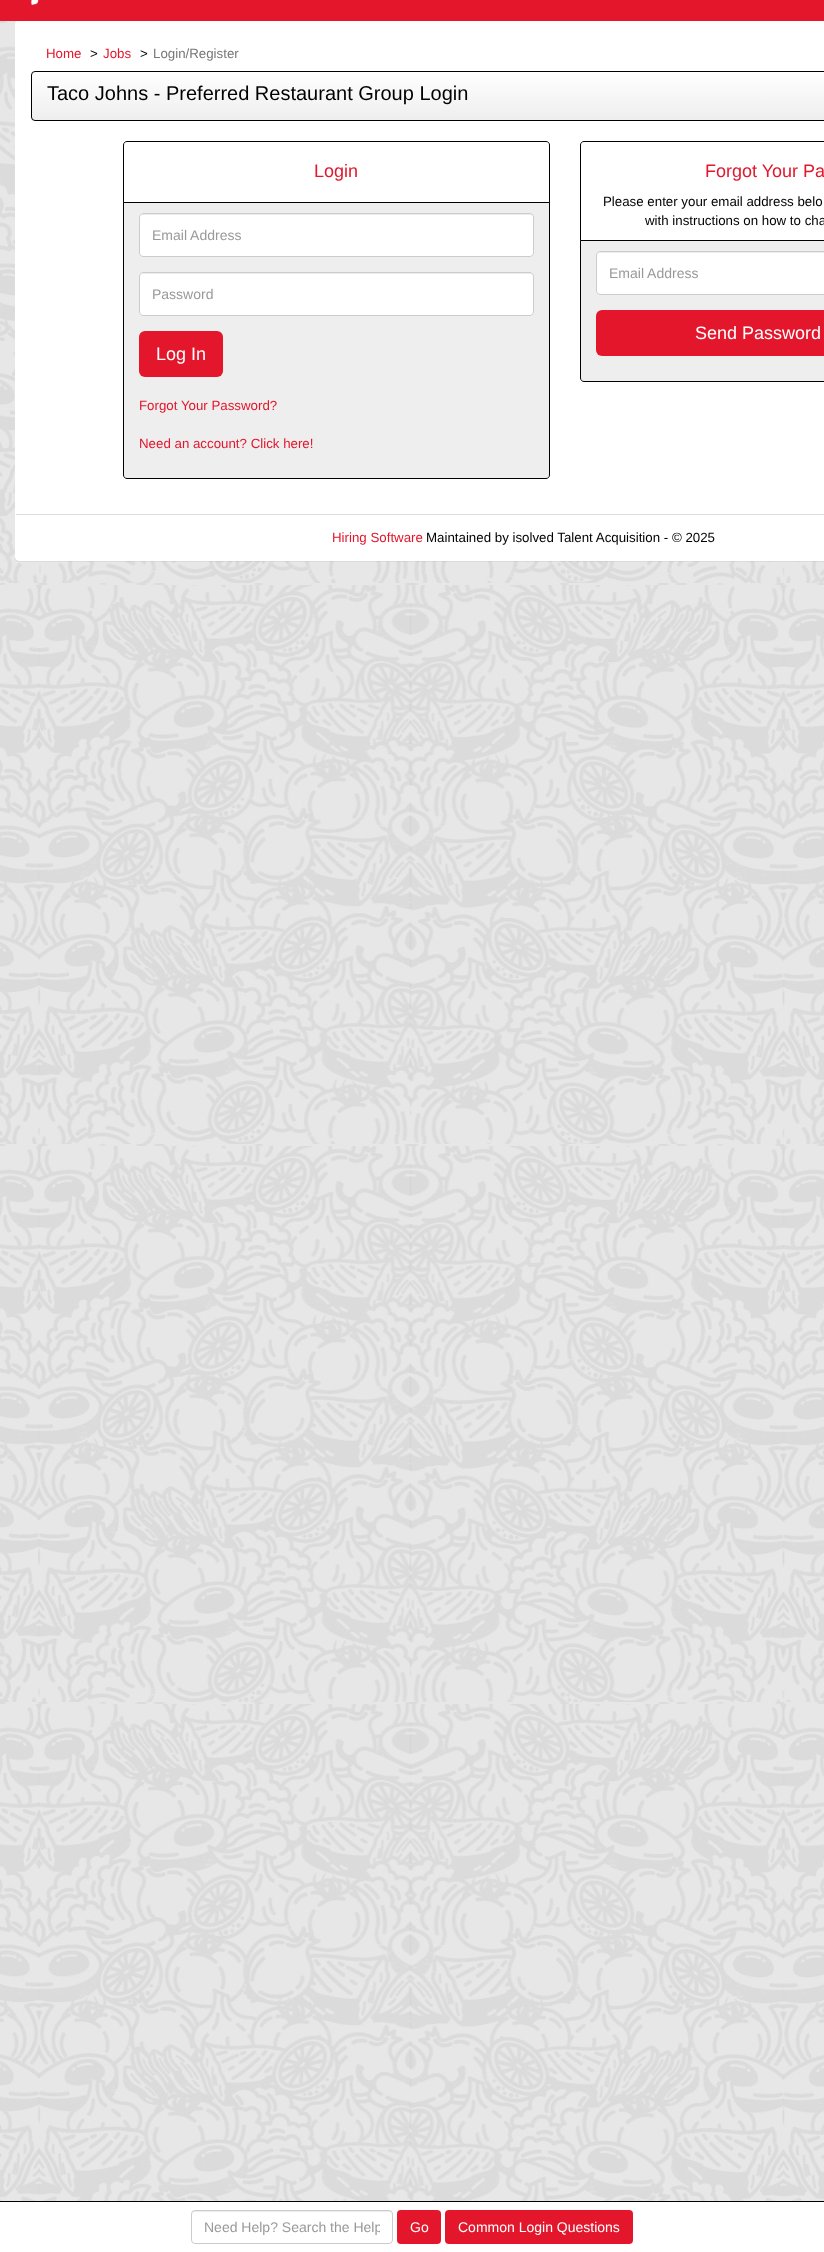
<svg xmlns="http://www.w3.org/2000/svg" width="824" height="2252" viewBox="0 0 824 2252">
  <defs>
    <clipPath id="clip1"><rect x="31" y="71" width="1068" height="50" rx="4"/></clipPath>
    <linearGradient id="g1" gradientUnits="userSpaceOnUse" x1="565" y1="72" x2="565" y2="120"><stop offset="0" stop-color="#fff"/><stop offset="1" stop-color="#eee"/></linearGradient>
    <clipPath id="clip2"><path d="M204 2219h176v16H204z"/></clipPath>
  </defs>
  <rect width="100%" height="100%" fill="#fff"/>
  <image x="0" y="0" width="824" height="2201" href="img/1.png"/>
  <rect x="15" y="21" width="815" height="541" rx="4" fill="#0000000d" filter="blur(0.5px)"/>
  <rect x="15.5" y="20.5" width="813" height="540" rx="3.5" fill="#fff" stroke="#fff"/>
  <image x="16" y="0" width="808" height="21" href="img/2.png"/>
  <g clip-path="url(#clip1)">
    <path d="M31 72h793v48H31z" fill="url(#g1)"/>
  </g>
  <rect x="31.5" y="71.5" width="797" height="49" rx="3.5" fill="none" stroke="#000"/>
  <path d="M127 141.5H546C548 141.5 549.5 143 549.5 145V202.5H123.5V145C123.5 143 125 141.5 127 141.5Z" fill="none" stroke="#000"/>
  <path d="M123.5 202.5H549.5V475C549.5 477 548 478.5 546 478.5H127C125 478.5 123.5 477 123.5 475Z" fill="#eee" stroke="#000"/>
  <rect x="139" y="213" width="395" height="44" rx="4" fill="#fff"/>
  <path d="M143 215H530C532 215 533 216 533 218C533 216 532 214 530 214H143L141 215L140 218C140 216 141 215 143 215Z" fill="#ececec"/>
  <rect x="139.5" y="213.5" width="394" height="43" rx="3.5" fill="none" stroke="#ccc"/>
  <rect x="139" y="272" width="395" height="44" rx="4" fill="#fff"/>
  <path d="M143 274H530C532 274 533 275 533 277C533 275 532 273 530 273H143L141 274L140 277C140 275 141 274 143 274Z" fill="#ececec"/>
  <rect x="139.5" y="272.5" width="394" height="43" rx="3.5" fill="none" stroke="#ccc"/>
  <rect x="139" y="331" width="84" height="46" rx="6" fill="#e3162c"/>
  <path d="M584 141.5H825C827 141.5 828.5 143 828.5 145V240.5H580.5V145C580.5 143 582 141.5 584 141.5Z" fill="none" stroke="#000"/>
  <path d="M580.5 240.5H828.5V378C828.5 380 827 381.5 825 381.5H584C582 381.5 580.5 380 580.5 378Z" fill="#eee" stroke="#000"/>
  <rect x="596" y="251" width="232" height="44" rx="4" fill="#fff"/>
  <path d="M600 253H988C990 253 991 254 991 256C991 254 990 252 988 252H600L598 253L597 256C597 254 598 253 600 253Z" fill="#ececec"/>
  <rect x="596.5" y="251.5" width="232" height="43" rx="3.5" fill="none" stroke="#ccc"/>
  <rect x="596" y="310" width="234" height="46" rx="6" fill="#e3162c"/>
  <path d="M16 514h808v1H16z" fill="#ddd"/>
  <path d="M0 2201h824v1H0z" fill="#000"/>
  <path d="M195 2212H389C391 2212 392 2213 392 2215C392 2213 391 2211 389 2211H195C193 2211 192 2213 192 2215C192 2213 193 2212 195 2212Z" fill="#ececec"/>
  <rect x="191.5" y="2210.5" width="201" height="33" rx="3.5" fill="none" stroke="#ccc"/>
  <rect x="397" y="2210" width="44" height="34" rx="4" fill="#e3162c"/>
  <rect x="445" y="2210" width="188" height="34" rx="4" fill="#e3162c"/>
  <text x="46" y="58" font-family="Liberation Sans" font-size="13.3" fill="#e3162c">Home</text>
  <text x="90" y="58" font-family="Liberation Sans" font-size="13.3" fill="#000">&gt;</text>
  <text x="103" y="58" font-family="Liberation Sans" font-size="13.3" fill="#e3162c">Jobs</text>
  <text x="140" y="58" font-family="Liberation Sans" font-size="13.3" fill="#000">&gt;</text>
  <text x="153" y="58" font-family="Liberation Sans" font-size="13.3" fill="#777">Login/Register</text>
  <text x="47" y="100" font-family="Liberation Sans" font-size="20" fill="#000">Taco Johns - Preferred Restaurant Group Login</text>
  <text x="314" y="177" font-family="Liberation Sans" font-size="18" fill="#e3162c">Login</text>
  <g font-family="Liberation Sans" font-size="14" fill="#999">
    <text x="152" y="240">Email Address</text>
    <text x="152" y="299">Password</text>
  </g>
  <text x="156" y="360" font-family="Liberation Sans" font-size="18" fill="#fff">Log In</text>
  <g font-family="Liberation Sans" font-size="13.3" fill="#e3162c">
    <text x="139" y="410">Forgot Your Password?</text>
    <text x="139" y="448">Need an account? Click here!</text>
  </g>
  <text x="705" y="177" font-family="Liberation Sans" font-size="18" fill="#e3162c">Forgot Your Pa</text>
  <g font-family="Liberation Sans" font-size="13.3" fill="#000">
    <text x="603" y="206">Please enter your email address belo</text>
    <text x="645" y="225">with instructions on how to cha</text>
  </g>
  <text x="609" y="278" font-family="Liberation Sans" font-size="14" fill="#999">Email Address</text>
  <text x="695" y="339" font-family="Liberation Sans" font-size="18" fill="#fff">Send Password</text>
  <text x="332" y="542" font-family="Liberation Sans" font-size="13.3" fill="#e3162c">Hiring Software</text>
  <text x="426" y="542" font-family="Liberation Sans" font-size="13.3" fill="#000">Maintained by isolved Talent Acquisition - © 2025</text>
  <g clip-path="url(#clip2)">
    <text x="204" y="2232" font-family="Liberation Sans" font-size="14" fill="#999">Need Help? Search the Help</text>
  </g>
  <g font-family="Liberation Sans" font-size="14" fill="#fff">
    <text x="410" y="2232">Go</text>
    <text x="458" y="2232">Common Login Questions</text>
  </g>
</svg>
